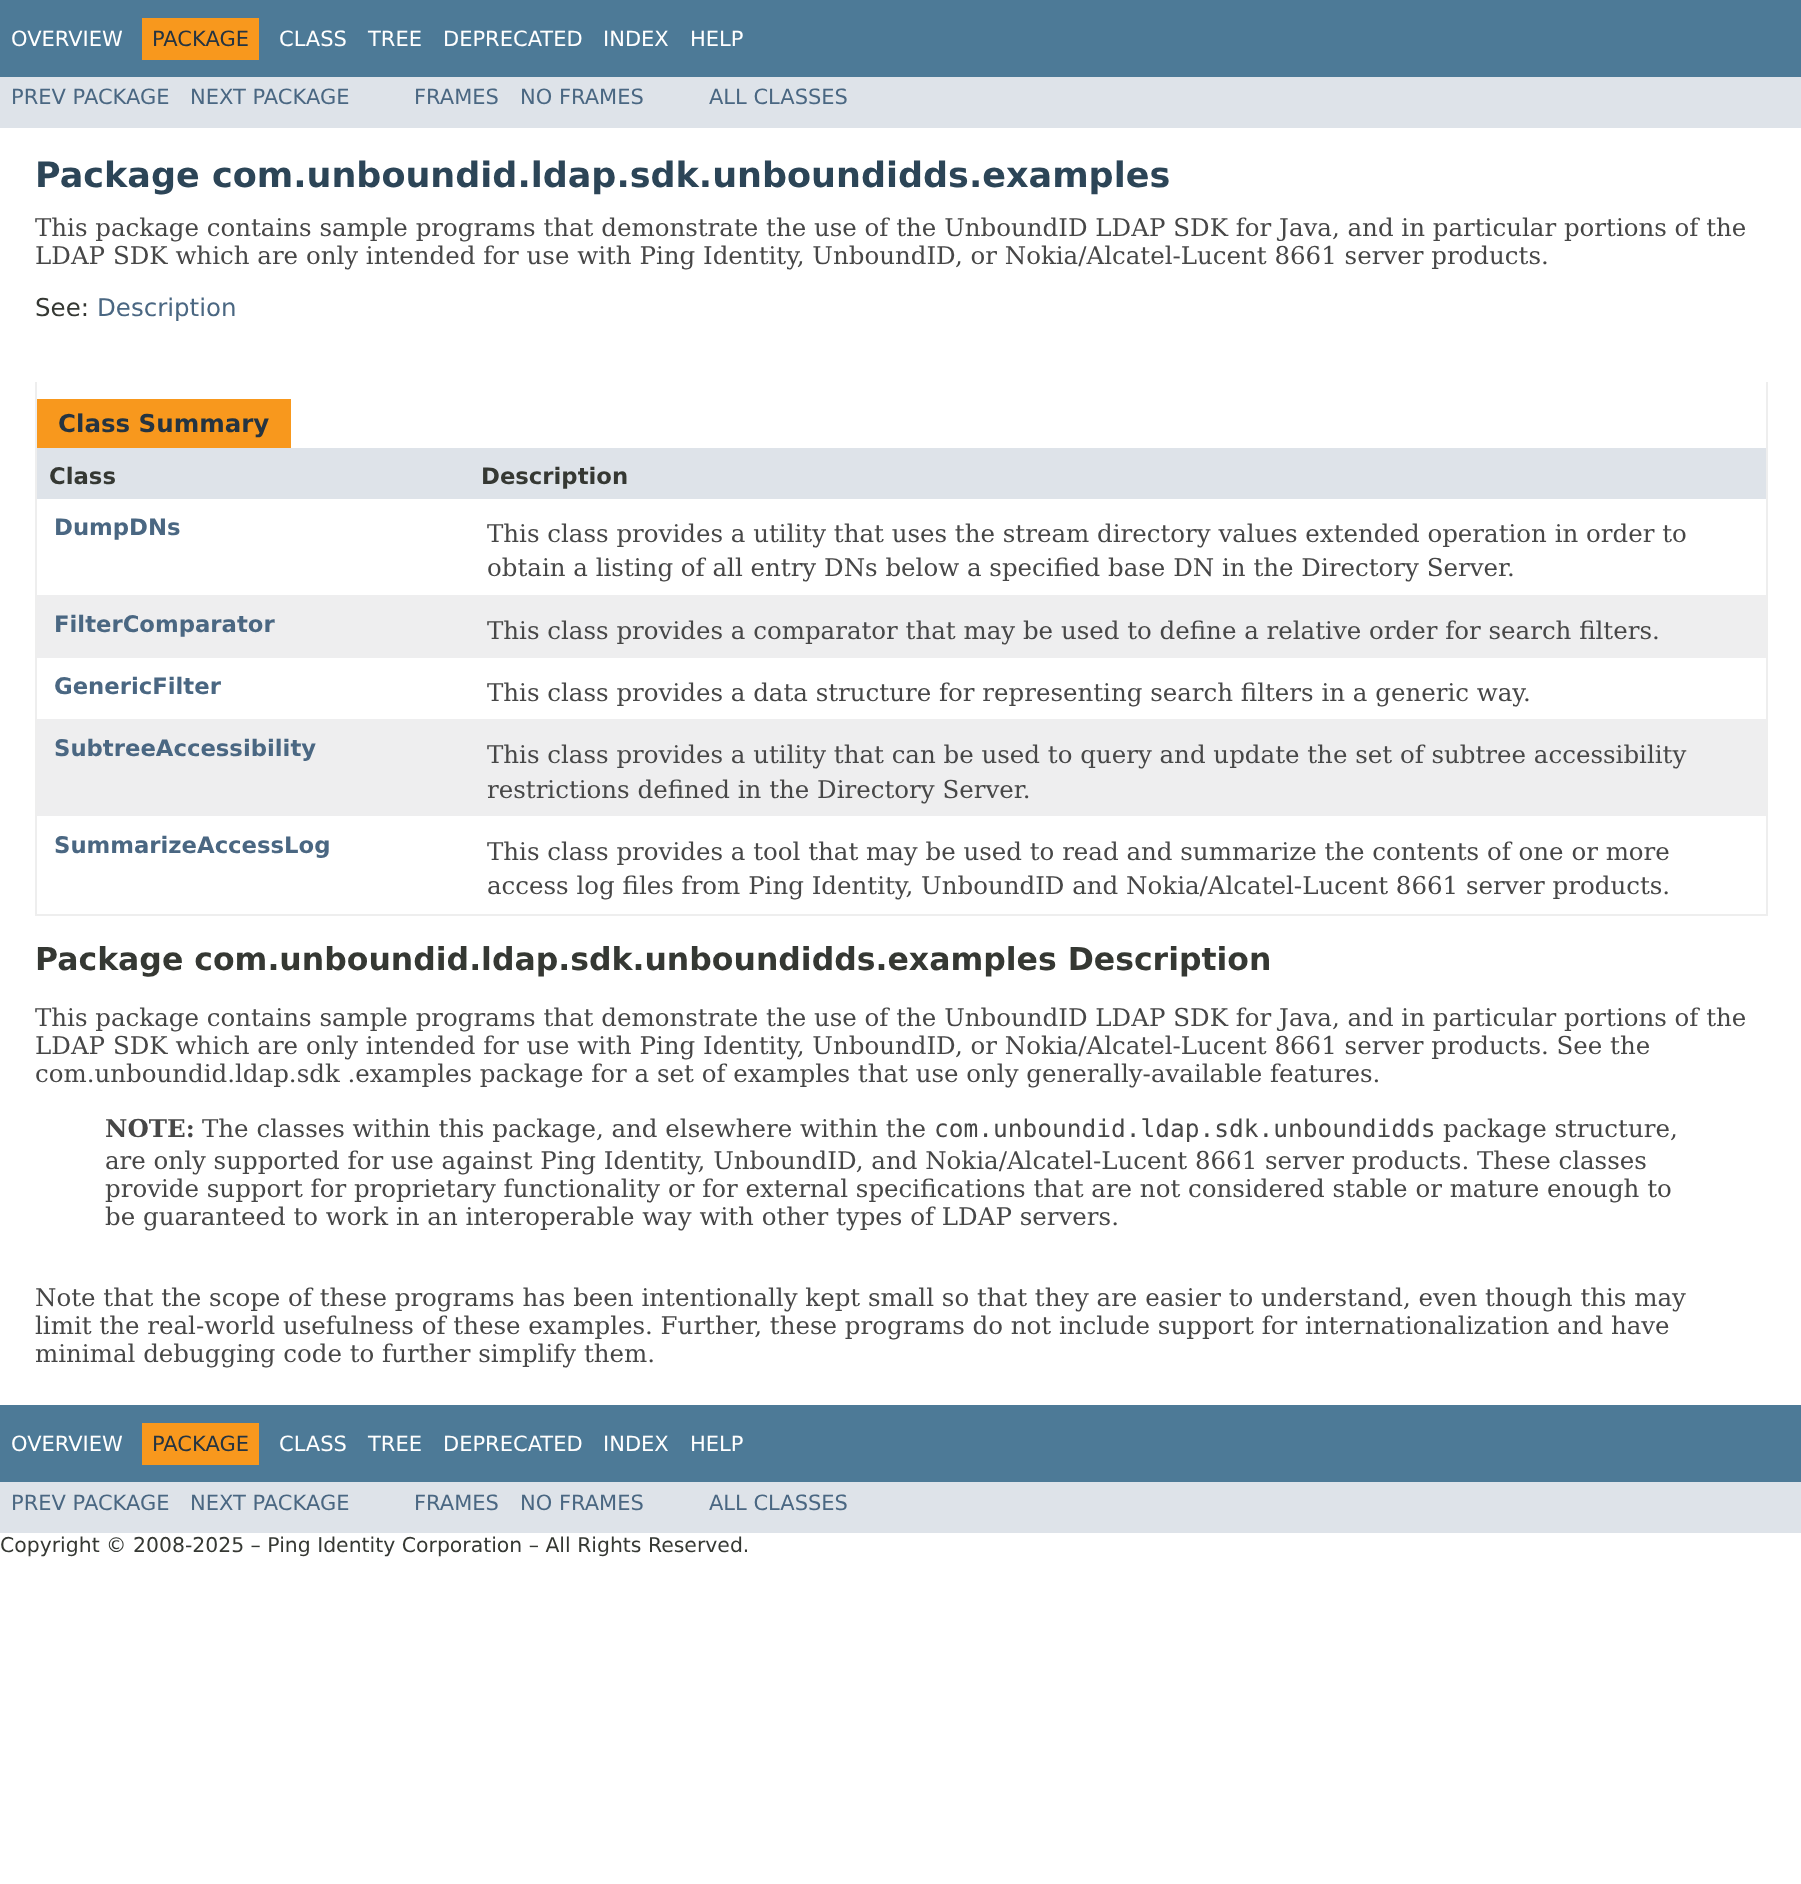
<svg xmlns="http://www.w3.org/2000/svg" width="1801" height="1884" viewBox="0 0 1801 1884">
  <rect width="100%" height="100%" fill="#fff"/>
  <path d="M0 0h1801v77H0z" fill="#4d7a97"/>
  <path d="M142 18h117v42H142z" fill="#f8981d"/>
  <path d="M0 77h1801v51H0z" fill="#dee3e9"/>
  <path d="M1766 382h2v533H1766z" fill="#eee"/>
  <path d="M35 914h1733v2H35z" fill="#eee"/>
  <path d="M35 382h2v533H35z" fill="#eee"/>
  <path d="M37 399h254v49H37z" fill="#f8981d"/>
  <path d="M37 448h1729v51H37z" fill="#dee3e9"/>
  <path d="M37 595h1729v63H37z" fill="#eeeeef"/>
  <path d="M37 719h1729v97H37z" fill="#eeeeef"/>
  <path d="M0 1405h1801v77H0z" fill="#4d7a97"/>
  <path d="M142 1423h117v42H142z" fill="#f8981d"/>
  <path d="M0 1482h1801v51H0z" fill="#dee3e9"/>
  <text x="11" y="46" font-family="DejaVu Sans" font-size="21" fill="#fff">OVERVIEW</text>
  <text x="152" y="46" font-family="DejaVu Sans" font-size="21" fill="#253441">PACKAGE</text>
  <g font-family="DejaVu Sans" font-size="21" fill="#fff">
    <text x="279" y="46">CLASS</text>
    <text x="368" y="46">TREE</text>
    <text x="443" y="46">DEPRECATED</text>
    <text x="603" y="46">INDEX</text>
    <text x="690" y="46">HELP</text>
  </g>
  <g font-family="DejaVu Sans" font-size="21" fill="#4a6782">
    <text x="11" y="104">PREV PACKAGE</text>
    <text x="190" y="104">NEXT PACKAGE</text>
    <text x="414" y="104">FRAMES</text>
    <text x="520" y="104">NO FRAMES</text>
    <text x="709" y="104">ALL CLASSES</text>
  </g>
  <text x="35" y="187" font-family="DejaVu Sans" font-size="35" font-weight="bold" fill="#2c4557">Package com.unboundid.ldap.sdk.unboundidds.examples</text>
  <g font-family="DejaVu Serif" font-size="24.5" fill="#474747">
    <text x="35" y="236">This package contains sample programs that demonstrate the use of the UnboundID LDAP SDK for Java, and in particular portions of the</text>
    <text x="35" y="264">LDAP SDK which are only intended for use with Ping Identity, UnboundID, or Nokia/Alcatel-Lucent 8661 server products.</text>
  </g>
  <text x="35" y="316" font-family="DejaVu Sans" font-size="24.5" fill="#353833">See:</text>
  <text x="97" y="316" font-family="DejaVu Sans" font-size="24.5" fill="#4a6782">Description</text>
  <text x="58" y="432" font-family="DejaVu Sans" font-size="24.5" font-weight="bold" fill="#253441">Class Summary</text>
  <g font-family="DejaVu Sans" font-size="22.75" font-weight="bold" fill="#353833">
    <text x="49" y="484">Class</text>
    <text x="481" y="484">Description</text>
  </g>
  <text x="54" y="535" font-family="DejaVu Sans" font-size="22.75" font-weight="bold" fill="#4a6782">DumpDNs</text>
  <g font-family="DejaVu Serif" font-size="24.5" fill="#474747">
    <text x="487" y="542">This class provides a utility that uses the stream directory values extended operation in order to</text>
    <text x="487" y="576">obtain a listing of all entry DNs below a specified base DN in the Directory Server.</text>
  </g>
  <text x="54" y="632" font-family="DejaVu Sans" font-size="22.75" font-weight="bold" fill="#4a6782">FilterComparator</text>
  <text x="487" y="639" font-family="DejaVu Serif" font-size="24.5" fill="#474747">This class provides a comparator that may be used to define a relative order for search filters.</text>
  <text x="54" y="694" font-family="DejaVu Sans" font-size="22.75" font-weight="bold" fill="#4a6782">GenericFilter</text>
  <text x="487" y="701" font-family="DejaVu Serif" font-size="24.5" fill="#474747">This class provides a data structure for representing search filters in a generic way.</text>
  <text x="54" y="756" font-family="DejaVu Sans" font-size="22.75" font-weight="bold" fill="#4a6782">SubtreeAccessibility</text>
  <g font-family="DejaVu Serif" font-size="24.5" fill="#474747">
    <text x="487" y="763">This class provides a utility that can be used to query and update the set of subtree accessibility</text>
    <text x="487" y="798">restrictions defined in the Directory Server.</text>
  </g>
  <text x="54" y="853" font-family="DejaVu Sans" font-size="22.75" font-weight="bold" fill="#4a6782">SummarizeAccessLog</text>
  <g font-family="DejaVu Serif" font-size="24.5" fill="#474747">
    <text x="487" y="860">This class provides a tool that may be used to read and summarize the contents of one or more</text>
    <text x="487" y="894">access log files from Ping Identity, UnboundID and Nokia/Alcatel-Lucent 8661 server products.</text>
  </g>
  <text x="35" y="970" font-family="DejaVu Sans" font-size="31.5" font-weight="bold" fill="#353833">Package com.unboundid.ldap.sdk.unboundidds.examples Description</text>
  <g font-family="DejaVu Serif" font-size="24.5" fill="#474747">
    <text x="35" y="1026">This package contains sample programs that demonstrate the use of the UnboundID LDAP SDK for Java, and in particular portions of the</text>
    <text x="35" y="1054">LDAP SDK which are only intended for use with Ping Identity, UnboundID, or Nokia/Alcatel-Lucent 8661 server products. See the</text>
    <text x="35" y="1082">com.unboundid.ldap.sdk .examples package for a set of examples that use only generally-available features.</text>
  </g>
  <text x="105" y="1137" font-family="DejaVu Serif" font-size="24.5" font-weight="bold" fill="#474747">NOTE:</text>
  <text x="202" y="1137" font-family="DejaVu Serif" font-size="24.5" fill="#474747">The classes within this package, and elsewhere within the</text>
  <text x="934" y="1137" font-family="DejaVu Sans Mono" font-size="24.5" fill="#474747">com.unboundid.ldap.sdk.unboundidds</text>
  <g font-family="DejaVu Serif" font-size="24.5" fill="#474747">
    <text x="1443" y="1137">package structure,</text>
    <text x="105" y="1169">are only supported for use against Ping Identity, UnboundID, and Nokia/Alcatel-Lucent 8661 server products. These classes</text>
    <text x="105" y="1197">provide support for proprietary functionality or for external specifications that are not considered stable or mature enough to</text>
    <text x="105" y="1225">be guaranteed to work in an interoperable way with other types of LDAP servers.</text>
    <text x="35" y="1306">Note that the scope of these programs has been intentionally kept small so that they are easier to understand, even though this may</text>
    <text x="35" y="1334">limit the real-world usefulness of these examples. Further, these programs do not include support for internationalization and have</text>
    <text x="35" y="1362">minimal debugging code to further simplify them.</text>
  </g>
  <text x="11" y="1451" font-family="DejaVu Sans" font-size="21" fill="#fff">OVERVIEW</text>
  <text x="152" y="1451" font-family="DejaVu Sans" font-size="21" fill="#253441">PACKAGE</text>
  <g font-family="DejaVu Sans" font-size="21" fill="#fff">
    <text x="279" y="1451">CLASS</text>
    <text x="368" y="1451">TREE</text>
    <text x="443" y="1451">DEPRECATED</text>
    <text x="603" y="1451">INDEX</text>
    <text x="690" y="1451">HELP</text>
  </g>
  <g font-family="DejaVu Sans" font-size="21" fill="#4a6782">
    <text x="11" y="1510">PREV PACKAGE</text>
    <text x="190" y="1510">NEXT PACKAGE</text>
    <text x="414" y="1510">FRAMES</text>
    <text x="520" y="1510">NO FRAMES</text>
    <text x="709" y="1510">ALL CLASSES</text>
  </g>
  <text x="0" y="1552" font-family="DejaVu Sans" font-size="20.4" fill="#353833">Copyright © 2008-2025 – Ping Identity Corporation – All Rights Reserved.</text>
</svg>
